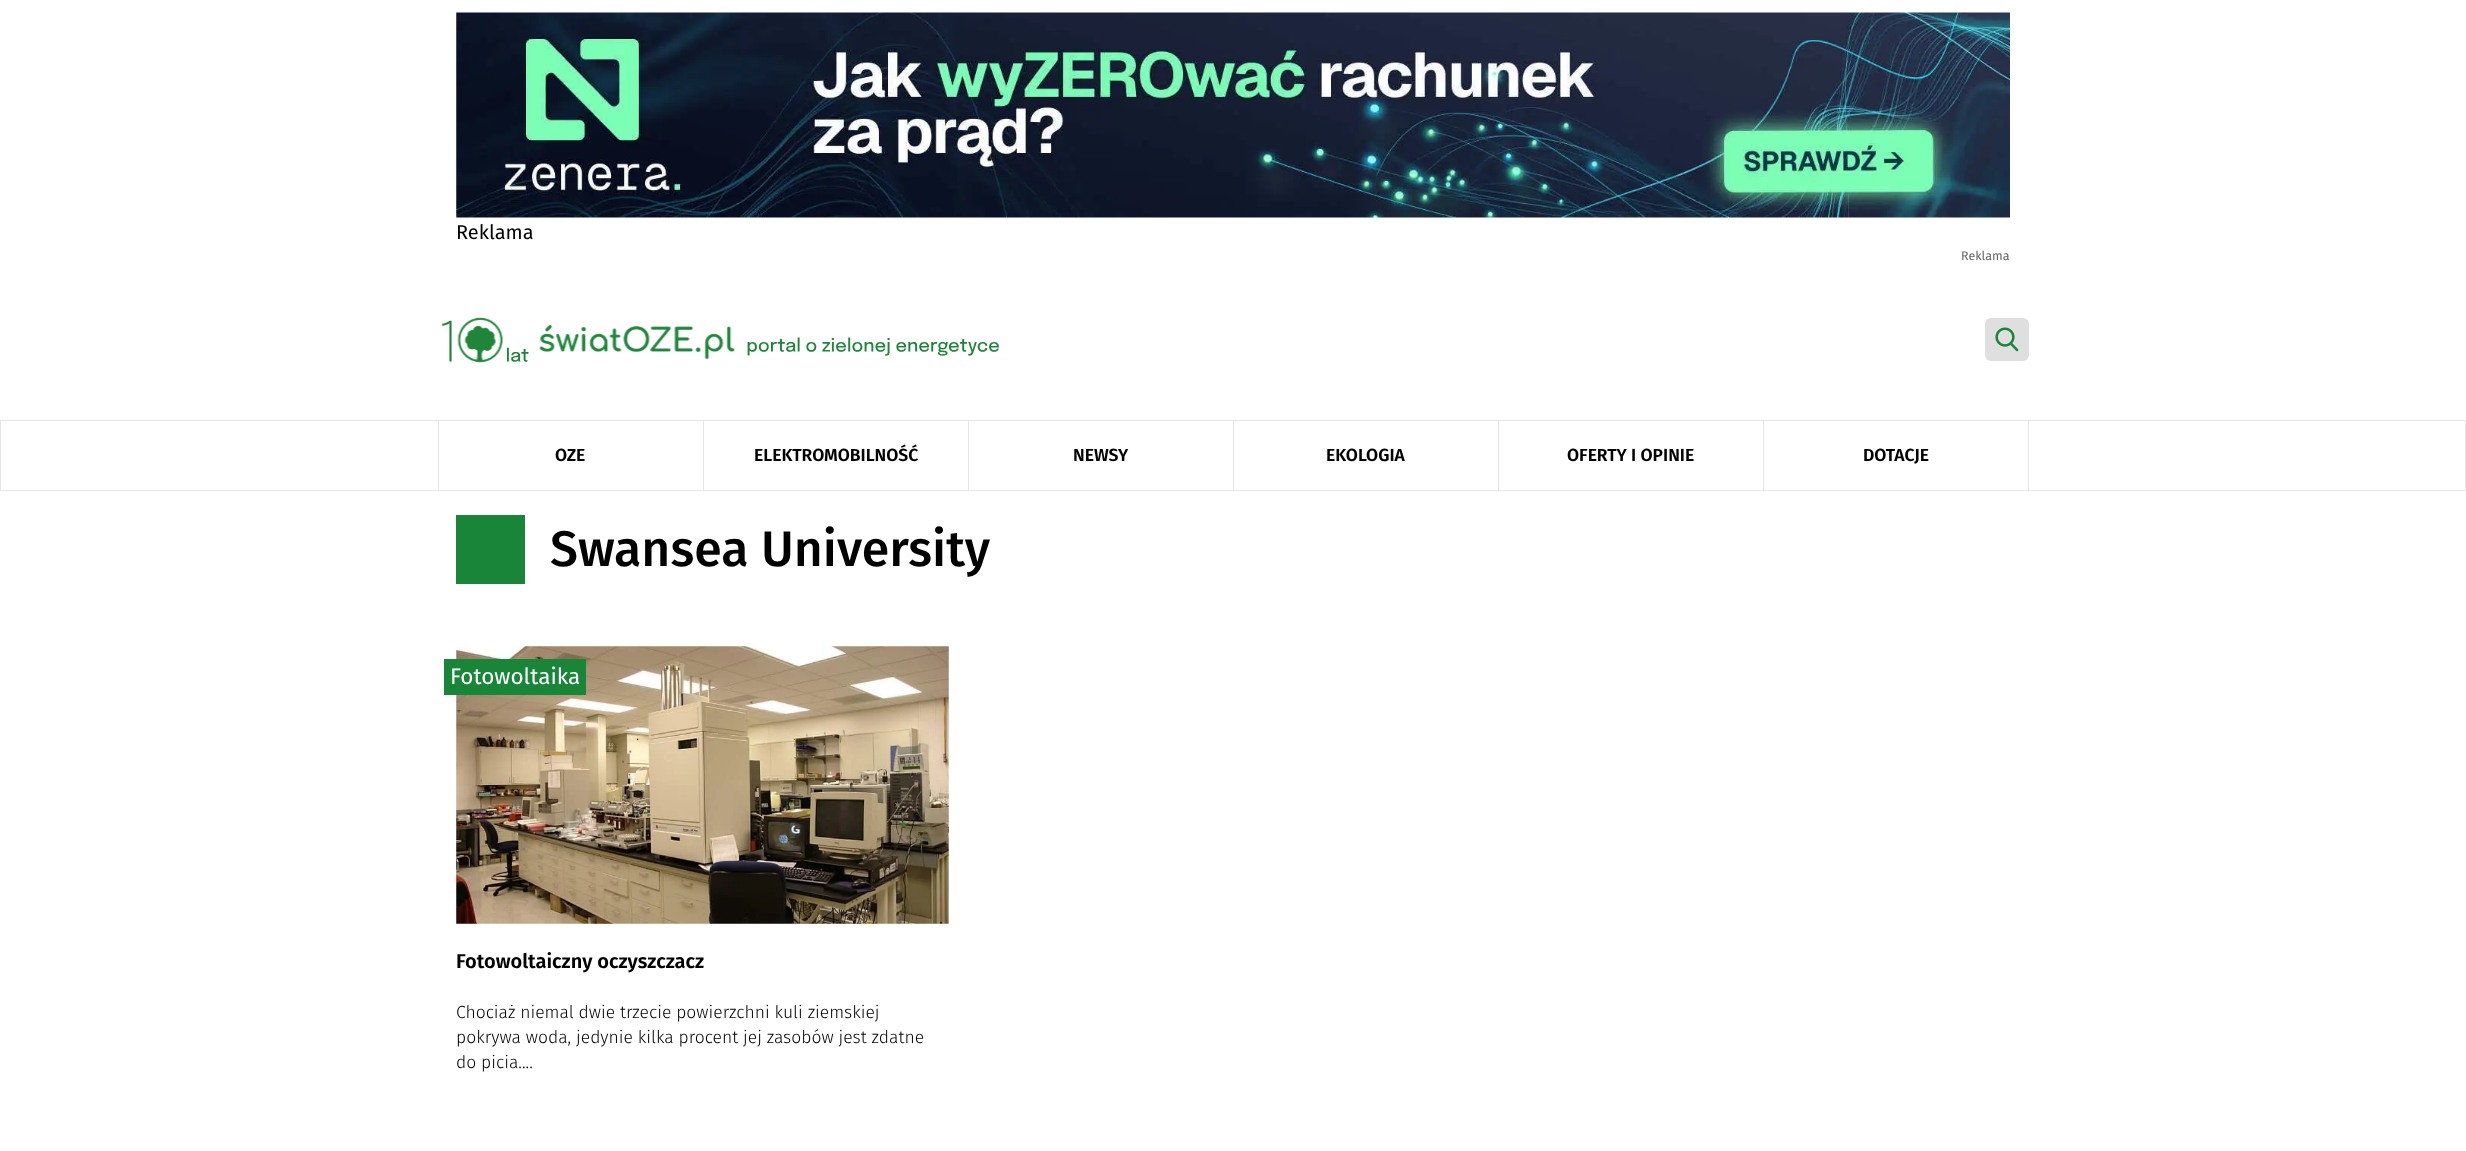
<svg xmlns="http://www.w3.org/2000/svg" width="2466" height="1151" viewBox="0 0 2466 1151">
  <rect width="100%" height="100%" fill="#fff"/>
  <image x="456" y="12" width="1554" height="206" href="img/1.png"/>
  <image x="442" y="317" width="557" height="46" href="img/2.png"/>
  <rect x="1985" y="318" width="44" height="43" rx="6" fill="#dfdfdf"/>
  <image x="1995" y="327" width="24" height="25" href="img/3.png"/>
  <path d="M0.5 420.5h2465v70H0.5z" fill="none" stroke="#e5e5e5"/>
  <path d="M438 421h1v69H438z" fill="#e5e5e5"/>
  <path d="M703 421h1v69H703z" fill="#e5e5e5"/>
  <path d="M968 421h1v69H968z" fill="#e5e5e5"/>
  <path d="M1233 421h1v69H1233z" fill="#e5e5e5"/>
  <path d="M1498 421h1v69H1498z" fill="#e5e5e5"/>
  <path d="M2028 421h1v69H2028z" fill="#e5e5e5"/>
  <path d="M1763 421h1v69H1763z" fill="#e5e5e5"/>
  <path d="M456 515h69v69H456z" fill="#198539"/>
  <image x="456" y="646" width="493" height="278" href="img/4.png"/>
  <path d="M444 659h142v36H444z" fill="#198539"/>
  <text x="456" y="239" font-family="Fira Sans" font-size="20" fill="#000">Reklama</text>
  <text x="1961" y="260" font-family="Fira Sans" font-size="12.5" fill="#666">Reklama</text>
  <g font-family="Fira Sans" font-size="17.5" font-weight="600" fill="#000">
    <text x="555" y="461">OZE</text>
    <text x="754" y="461">ELEKTROMOBILNOŚĆ</text>
    <text x="1073" y="461">NEWSY</text>
    <text x="1326" y="461">EKOLOGIA</text>
    <text x="1567" y="461">OFERTY I OPINIE</text>
    <text x="1863" y="461">DOTACJE</text>
  </g>
  <text x="550" y="566" font-family="Fira Sans" font-size="50" font-weight="500" fill="#000">Swansea University</text>
  <text x="450" y="684" font-family="Fira Sans" font-size="22.5" fill="#fff">Fotowoltaika</text>
  <text x="456" y="968" font-family="Fira Sans" font-size="20" font-weight="600" fill="#000">Fotowoltaiczny oczyszczacz</text>
  <g font-family="Fira Sans" font-size="17.5" font-weight="300" fill="#000">
    <text x="456" y="1018">Chociaż niemal dwie trzecie powierzchni kuli ziemskiej</text>
    <text x="456" y="1043">pokrywa woda, jedynie kilka procent jej zasobów jest zdatne</text>
    <text x="456" y="1068">do picia....</text>
  </g>
</svg>
